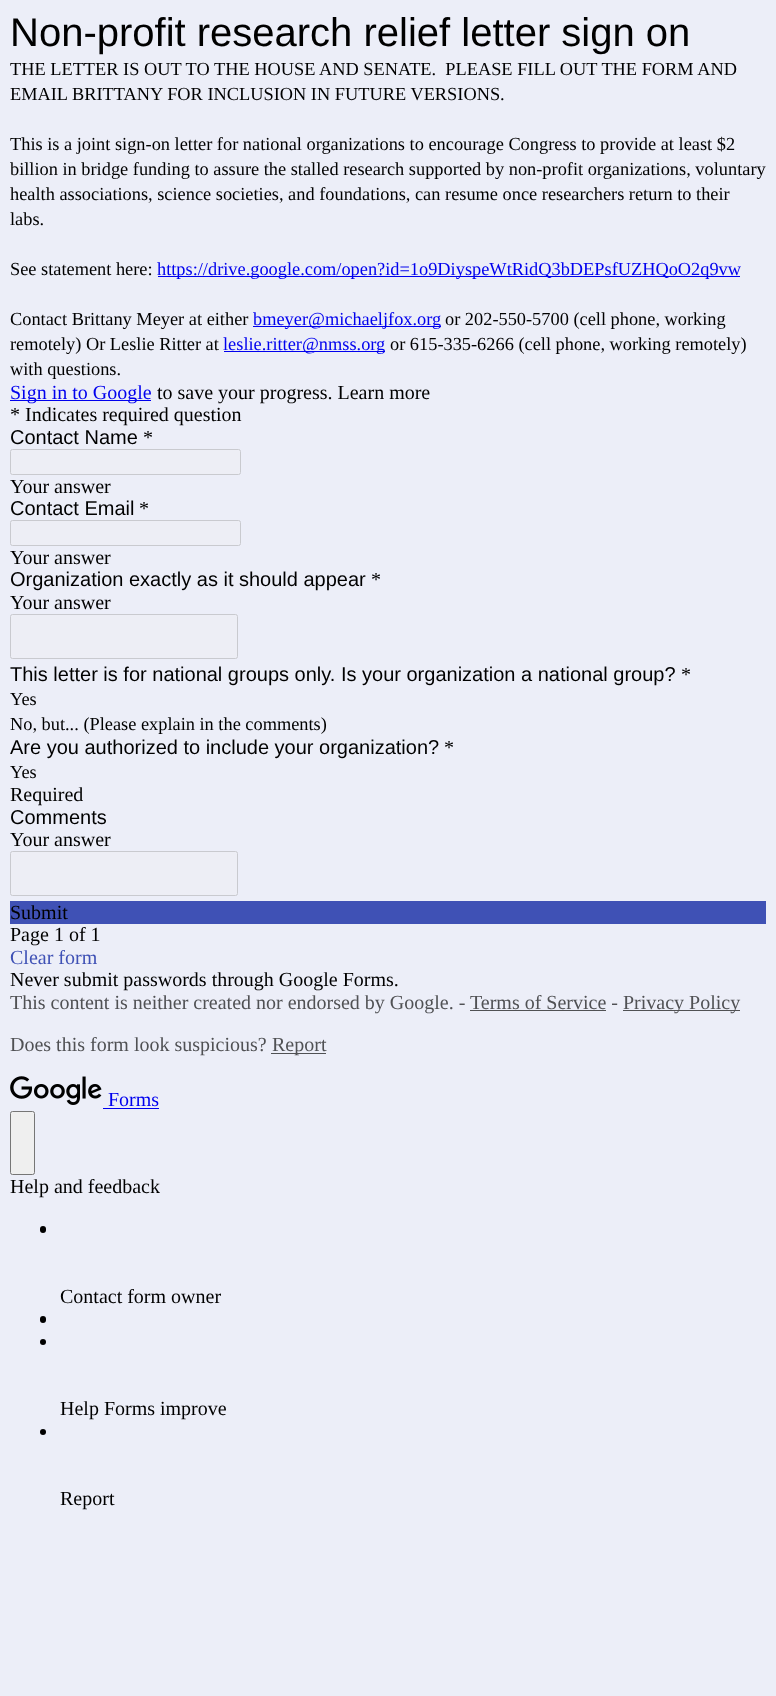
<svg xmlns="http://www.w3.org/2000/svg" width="776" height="1696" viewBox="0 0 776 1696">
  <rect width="100%" height="100%" fill="#eceef8"/>
  <path d="M158 276h582v1H158z" fill="#00e"/>
  <path d="M253 326h188v1H253z" fill="#00e"/>
  <path d="M224 351h161v1H224z" fill="#00e"/>
  <path d="M10 400h141v1H10z" fill="#00e"/>
  <rect x="10.5" y="449.5" width="230" height="25" rx="2" fill="#edeef5" stroke="#c9cacf"/>
  <rect x="10.5" y="520.5" width="230" height="25" rx="2" fill="#edeef5" stroke="#c9cacf"/>
  <rect x="10.5" y="614.5" width="227" height="44" rx="2" fill="#edeef5" stroke="#c9cacf"/>
  <rect x="10.5" y="851.5" width="227" height="44" rx="2" fill="#edeef5" stroke="#c9cacf"/>
  <path d="M10 901h756v23H10z" fill="#3f51b5"/>
  <path d="M470 1010h136v1H470z" fill="#505154"/>
  <path d="M623 1010h117v1H623z" fill="#505154"/>
  <path d="M271 1053h55v1H271z" fill="#505154"/>
  <image x="10" y="1076" width="92" height="29" href="img/1.png"/>
  <path d="M103 1108h56v1H103z" fill="#00e"/>
  <rect x="10.5" y="1111.5" width="24" height="63" rx="2" fill="#efefef" stroke="#767676"/>
  <rect x="40" y="1226" width="6" height="7" rx="3" fill="#000"/>
  <rect x="40" y="1316" width="6" height="7" rx="3" fill="#000"/>
  <circle cx="43" cy="1342" r="3" fill="#000"/>
  <circle cx="43" cy="1432" r="3" fill="#000"/>
  <text x="10" y="46" font-family="Liberation Sans" font-size="40" fill="#000">Non-profit research relief letter sign on</text>
  <g font-family="Liberation Serif" font-size="18.35" fill="#000">
    <text x="10" y="75" xml:space="preserve">THE LETTER IS OUT TO THE HOUSE AND SENATE.  PLEASE FILL OUT THE FORM AND</text>
    <text x="10" y="100">EMAIL BRITTANY FOR INCLUSION IN FUTURE VERSIONS.</text>
    <text x="10" y="150">This is a joint sign-on letter for national organizations to encourage Congress to provide at least $2</text>
    <text x="10" y="175">billion in bridge funding to assure the stalled research supported by non-profit organizations, voluntary</text>
    <text x="10" y="200">health associations, science societies, and foundations, can resume once researchers return to their</text>
    <text x="10" y="225">labs.</text>
    <text x="10" y="275">See statement here:</text>
  </g>
  <text x="157" y="275" font-family="Liberation Serif" font-size="18.35" fill="#00e">https://drive.google.com/open?id=1o9DiyspeWtRidQ3bDEPsfUZHQoO2q9vw</text>
  <text x="10" y="325" font-family="Liberation Serif" font-size="18.35" fill="#000">Contact Brittany Meyer at either</text>
  <text x="253" y="325" font-family="Liberation Serif" font-size="18.35" fill="#00e">bmeyer@michaeljfox.org</text>
  <g font-family="Liberation Serif" font-size="18.35" fill="#000">
    <text x="445" y="325">or 202-550-5700 (cell phone, working</text>
    <text x="10" y="350">remotely) Or Leslie Ritter at</text>
  </g>
  <text x="223" y="350" font-family="Liberation Serif" font-size="18.35" fill="#00e">leslie.ritter@nmss.org</text>
  <g font-family="Liberation Serif" font-size="18.35" fill="#000">
    <text x="390" y="350">or 615-335-6266 (cell phone, working remotely)</text>
    <text x="10" y="375">with questions.</text>
  </g>
  <text x="10" y="399" font-family="Liberation Serif" font-size="20" fill="#00e">Sign in to Google</text>
  <g font-family="Liberation Serif" font-size="20" fill="#000">
    <text x="157" y="399">to save your progress. Learn more</text>
    <text x="10" y="421">* Indicates required question</text>
  </g>
  <text x="10" y="444" font-family="Liberation Sans" font-size="20" fill="#000">Contact Name</text>
  <g font-family="Liberation Serif" font-size="20" fill="#000">
    <text x="143" y="444">*</text>
    <text x="10" y="493">Your answer</text>
  </g>
  <text x="10" y="515" font-family="Liberation Sans" font-size="20" fill="#000">Contact Email</text>
  <g font-family="Liberation Serif" font-size="20" fill="#000">
    <text x="139" y="515">*</text>
    <text x="10" y="564">Your answer</text>
  </g>
  <text x="10" y="586" font-family="Liberation Sans" font-size="20" fill="#000">Organization exactly as it should appear</text>
  <g font-family="Liberation Serif" font-size="20" fill="#000">
    <text x="371" y="586">*</text>
    <text x="10" y="609">Your answer</text>
  </g>
  <text x="10" y="681" font-family="Liberation Sans" font-size="20" fill="#000">This letter is for national groups only. Is your organization a national group?</text>
  <text x="681" y="681" font-family="Liberation Serif" font-size="20" fill="#000">*</text>
  <g font-family="Liberation Serif" font-size="18.35" fill="#000">
    <text x="10" y="705">Yes</text>
    <text x="10" y="730">No, but... (Please explain in the comments)</text>
  </g>
  <text x="10" y="754" font-family="Liberation Sans" font-size="20" fill="#000">Are you authorized to include your organization?</text>
  <text x="444" y="754" font-family="Liberation Serif" font-size="20" fill="#000">*</text>
  <text x="10" y="778" font-family="Liberation Serif" font-size="18.35" fill="#000">Yes</text>
  <text x="10" y="801" font-family="Liberation Serif" font-size="20" fill="#000">Required</text>
  <text x="10" y="824" font-family="Liberation Sans" font-size="20" fill="#000">Comments</text>
  <g font-family="Liberation Serif" font-size="20" fill="#000">
    <text x="10" y="846">Your answer</text>
    <text x="10" y="919">Submit</text>
    <text x="10" y="941">Page 1 of 1</text>
  </g>
  <text x="10" y="964" font-family="Liberation Serif" font-size="20" fill="#3f51b5">Clear form</text>
  <text x="10" y="986" font-family="Liberation Serif" font-size="20" fill="#000">Never submit passwords through Google Forms.</text>
  <g font-family="Liberation Serif" font-size="20" fill="#505154">
    <text x="10" y="1009">This content is neither created nor endorsed by Google. -</text>
    <text x="470" y="1009">Terms of Service -</text>
    <text x="623" y="1009">Privacy Policy</text>
    <text x="10" y="1051">Does this form look suspicious?</text>
    <text x="272" y="1051">Report</text>
  </g>
  <text x="108" y="1106" font-family="Liberation Serif" font-size="20" fill="#00e">Forms</text>
  <g font-family="Liberation Serif" font-size="20" fill="#000">
    <text x="10" y="1193">Help and feedback</text>
    <text x="60" y="1303">Contact form owner</text>
    <text x="60" y="1415">Help Forms improve</text>
    <text x="60" y="1505">Report</text>
  </g>
</svg>
